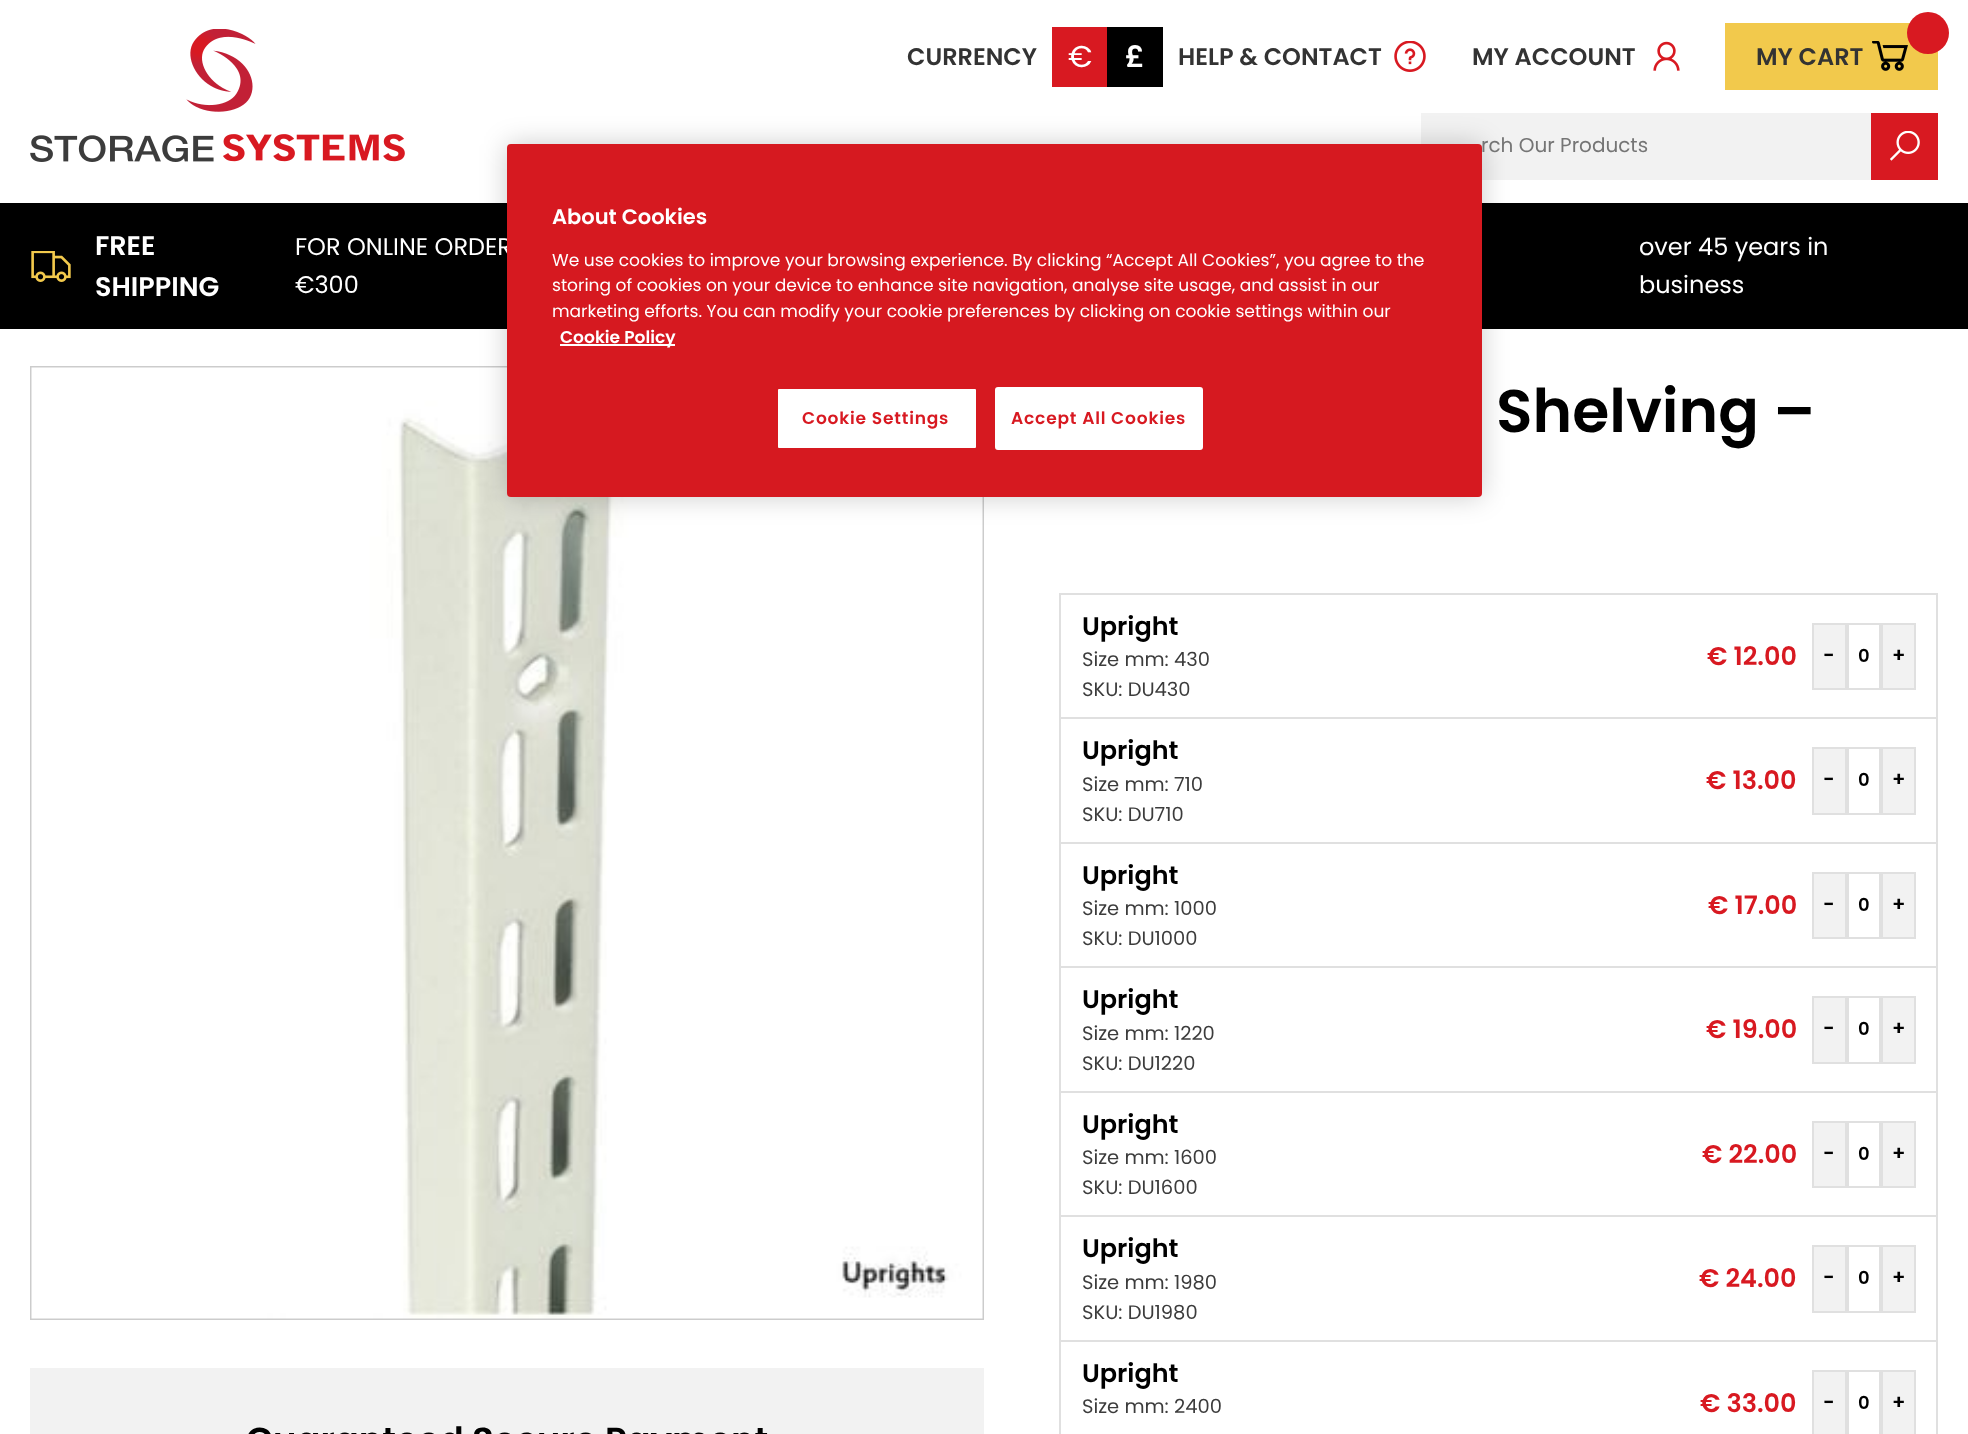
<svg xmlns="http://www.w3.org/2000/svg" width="1968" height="1434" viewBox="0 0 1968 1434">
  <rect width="100%" height="100%" fill="#fff"/>
  <image x="30" y="29" width="375" height="133" href="img/1.png"/>
  <path d="M1052 27h55v60H1052z" fill="#d81921"/>
  <path d="M1107 27h56v60H1107z" fill="#000"/>
  <image x="1394" y="41" width="32" height="31" href="img/2.png"/>
  <image x="1653" y="41" width="27" height="30" href="img/3.png"/>
  <path d="M1725 23h213v67H1725z" fill="#f2c94c"/>
  <image x="1872" y="41" width="36" height="30" href="img/4.png"/>
  <circle cx="1928" cy="33" r="21" fill="#d81921"/>
  <path d="M1421 113h450v67H1421z" fill="#f2f2f2"/>
  <path d="M1871 113h67v67H1871z" fill="#d81921"/>
  <image x="1890" y="131" width="30" height="30" href="img/5.png"/>
  <path d="M0 203h1968v126H0z" fill="#000"/>
  <path d="M31 367h952v952H31z" fill="none" stroke="#ccc" stroke-width="2"/>
  <image x="31" y="367" width="952" height="952" href="img/7.png"/>
  <rect x="507" y="144" width="975" height="353" rx="4" fill="#00000033" filter="blur(13.5px)"/>
  <image x="31" y="251" width="40" height="31" href="img/6.png"/>
  <image x="30" y="1368" width="954" height="66" href="img/8.png"/>
  <path d="M1060 594h877v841H1060z" fill="none" stroke="#e0e0e0" stroke-width="2"/>
  <path d="M1061 717h876v2H1061z" fill="#e0e0e0"/>
  <path d="M1813 624h33v65H1813z" fill="#f2f2f2" stroke="#e0e0e0" stroke-width="2"/>
  <path d="M1848 624h32v65H1848z" fill="none" stroke="#e0e0e0" stroke-width="2"/>
  <path d="M1882 624h33v65H1882z" fill="#f2f2f2" stroke="#e0e0e0" stroke-width="2"/>
  <path d="M1061 842h876v2H1061z" fill="#e0e0e0"/>
  <path d="M1813 748h33v66H1813z" fill="#f2f2f2" stroke="#e0e0e0" stroke-width="2"/>
  <path d="M1848 748h32v66H1848z" fill="none" stroke="#e0e0e0" stroke-width="2"/>
  <path d="M1882 748h33v66H1882z" fill="#f2f2f2" stroke="#e0e0e0" stroke-width="2"/>
  <path d="M1061 966h876v2H1061z" fill="#e0e0e0"/>
  <path d="M1813 873h33v65H1813z" fill="#f2f2f2" stroke="#e0e0e0" stroke-width="2"/>
  <path d="M1848 873h32v65H1848z" fill="none" stroke="#e0e0e0" stroke-width="2"/>
  <path d="M1882 873h33v65H1882z" fill="#f2f2f2" stroke="#e0e0e0" stroke-width="2"/>
  <path d="M1061 1091h876v2H1061z" fill="#e0e0e0"/>
  <path d="M1813 997h33v66H1813z" fill="#f2f2f2" stroke="#e0e0e0" stroke-width="2"/>
  <path d="M1848 997h32v66H1848z" fill="none" stroke="#e0e0e0" stroke-width="2"/>
  <path d="M1882 997h33v66H1882z" fill="#f2f2f2" stroke="#e0e0e0" stroke-width="2"/>
  <path d="M1061 1215h876v2H1061z" fill="#e0e0e0"/>
  <path d="M1813 1122h33v65H1813z" fill="#f2f2f2" stroke="#e0e0e0" stroke-width="2"/>
  <path d="M1848 1122h32v65H1848z" fill="none" stroke="#e0e0e0" stroke-width="2"/>
  <path d="M1882 1122h33v65H1882z" fill="#f2f2f2" stroke="#e0e0e0" stroke-width="2"/>
  <path d="M1061 1340h876v2H1061z" fill="#e0e0e0"/>
  <path d="M1813 1246h33v66H1813z" fill="#f2f2f2" stroke="#e0e0e0" stroke-width="2"/>
  <path d="M1848 1246h32v66H1848z" fill="none" stroke="#e0e0e0" stroke-width="2"/>
  <path d="M1882 1246h33v66H1882z" fill="#f2f2f2" stroke="#e0e0e0" stroke-width="2"/>
  <path d="M1813 1371h33v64H1813z" fill="#f2f2f2" stroke="#e0e0e0" stroke-width="2"/>
  <path d="M1848 1371h32v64H1848z" fill="none" stroke="#e0e0e0" stroke-width="2"/>
  <path d="M1882 1371h33v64H1882z" fill="#f2f2f2" stroke="#e0e0e0" stroke-width="2"/>
  <text x="907" y="65" font-family="Poppins" font-size="24" font-weight="600" fill="#333">CURRENCY</text>
  <text x="1068" y="67" font-family="Poppins" font-size="30" fill="#fff">€</text>
  <text x="1125" y="67" font-family="Poppins" font-size="30" font-weight="600" fill="#fff">£</text>
  <g font-family="Poppins" font-size="24" font-weight="600" fill="#333">
    <text x="1178" y="65">HELP &amp; CONTACT</text>
    <text x="1472" y="65">MY ACCOUNT</text>
    <text x="1756" y="65">MY CART</text>
  </g>
  <text x="1481" y="152" font-family="Poppins" font-size="20" fill="#757575">rch Our Products</text>
  <g font-family="Poppins" font-size="27" font-weight="600" fill="#fff">
    <text x="95" y="255">FREE</text>
    <text x="95" y="296">SHIPPING</text>
  </g>
  <text x="295" y="255" font-family="Poppins" font-size="24" fill="#fff">FOR ONLINE ORDER</text>
  <rect x="507" y="144" width="975" height="353" rx="4" fill="#d61920"/>
  <rect x="777" y="388" width="200" height="61" rx="2" fill="#fff" stroke="#d61920" stroke-width="2"/>
  <text x="802" y="424" font-family="Poppins" font-size="17.07" font-weight="600" letter-spacing="0.8" fill="#d81921">Cookie Settings</text>
  <rect x="996" y="388" width="206" height="61" rx="2" fill="#fff" stroke="#fff" stroke-width="2"/>
  <text x="1011" y="424" font-family="Poppins" font-size="17.07" font-weight="600" letter-spacing="0.8" fill="#d81921">Accept All Cookies</text>
  <path d="M560 344h115v2H560z" fill="#fff"/>
  <text x="560" y="343" font-family="Poppins" font-size="17.07" font-weight="600" fill="#fff">Cookie Policy</text>
  <g font-family="Poppins" font-size="17.07" fill="#fff">
    <text x="552" y="317">marketing efforts. You can modify your cookie preferences by clicking on cookie settings within our</text>
    <text x="552" y="291">storing of cookies on your device to enhance site navigation, analyse site usage, and assist in our</text>
    <text x="552" y="266">We use cookies to improve your browsing experience. By clicking “Accept All Cookies”, you agree to the</text>
  </g>
  <text x="552" y="224" font-family="Poppins" font-size="21" font-weight="600" fill="#fff">About Cookies</text>
  <g font-family="Poppins" font-size="24" fill="#fff">
    <text x="295" y="293">€300</text>
    <text x="1639" y="255">over 45 years in</text>
    <text x="1639" y="293">business</text>
  </g>
  <text x="1496" y="432" font-family="Poppins" font-size="60" font-weight="600" fill="#000">Shelving –</text>
  <text x="1082" y="635" font-family="Poppins" font-size="25.5" font-weight="600" fill="#000">Upright</text>
  <g font-family="Poppins" font-size="19.5" fill="#3c3c3c">
    <text x="1082" y="666">Size mm: 430</text>
    <text x="1082" y="696">SKU: DU430</text>
  </g>
  <text x="1707" y="665" font-family="Poppins" font-size="25.5" font-weight="600" fill="#d81921">€ 12.00</text>
  <text x="1823" y="662" font-family="Poppins" font-size="20" font-weight="600" fill="#000">-</text>
  <text x="1858" y="662" font-family="Poppins" font-size="18" font-weight="600" fill="#000">0</text>
  <text x="1892" y="662" font-family="Poppins" font-size="20" font-weight="600" fill="#000">+</text>
  <text x="1082" y="759" font-family="Poppins" font-size="25.5" font-weight="600" fill="#000">Upright</text>
  <g font-family="Poppins" font-size="19.5" fill="#3c3c3c">
    <text x="1082" y="791">Size mm: 710</text>
    <text x="1082" y="821">SKU: DU710</text>
  </g>
  <text x="1706" y="789" font-family="Poppins" font-size="25.5" font-weight="600" fill="#d81921">€ 13.00</text>
  <text x="1823" y="786" font-family="Poppins" font-size="20" font-weight="600" fill="#000">-</text>
  <text x="1858" y="786" font-family="Poppins" font-size="18" font-weight="600" fill="#000">0</text>
  <text x="1892" y="786" font-family="Poppins" font-size="20" font-weight="600" fill="#000">+</text>
  <text x="1082" y="884" font-family="Poppins" font-size="25.5" font-weight="600" fill="#000">Upright</text>
  <g font-family="Poppins" font-size="19.5" fill="#3c3c3c">
    <text x="1082" y="915">Size mm: 1000</text>
    <text x="1082" y="945">SKU: DU1000</text>
  </g>
  <text x="1708" y="914" font-family="Poppins" font-size="25.5" font-weight="600" fill="#d81921">€ 17.00</text>
  <text x="1823" y="911" font-family="Poppins" font-size="20" font-weight="600" fill="#000">-</text>
  <text x="1858" y="911" font-family="Poppins" font-size="18" font-weight="600" fill="#000">0</text>
  <text x="1892" y="911" font-family="Poppins" font-size="20" font-weight="600" fill="#000">+</text>
  <text x="1082" y="1008" font-family="Poppins" font-size="25.5" font-weight="600" fill="#000">Upright</text>
  <g font-family="Poppins" font-size="19.5" fill="#3c3c3c">
    <text x="1082" y="1040">Size mm: 1220</text>
    <text x="1082" y="1070">SKU: DU1220</text>
  </g>
  <text x="1706" y="1038" font-family="Poppins" font-size="25.5" font-weight="600" fill="#d81921">€ 19.00</text>
  <text x="1823" y="1035" font-family="Poppins" font-size="20" font-weight="600" fill="#000">-</text>
  <text x="1858" y="1035" font-family="Poppins" font-size="18" font-weight="600" fill="#000">0</text>
  <text x="1892" y="1035" font-family="Poppins" font-size="20" font-weight="600" fill="#000">+</text>
  <text x="1082" y="1133" font-family="Poppins" font-size="25.5" font-weight="600" fill="#000">Upright</text>
  <g font-family="Poppins" font-size="19.5" fill="#3c3c3c">
    <text x="1082" y="1164">Size mm: 1600</text>
    <text x="1082" y="1194">SKU: DU1600</text>
  </g>
  <text x="1702" y="1163" font-family="Poppins" font-size="25.5" font-weight="600" fill="#d81921">€ 22.00</text>
  <text x="1823" y="1160" font-family="Poppins" font-size="20" font-weight="600" fill="#000">-</text>
  <text x="1858" y="1160" font-family="Poppins" font-size="18" font-weight="600" fill="#000">0</text>
  <text x="1892" y="1160" font-family="Poppins" font-size="20" font-weight="600" fill="#000">+</text>
  <text x="1082" y="1257" font-family="Poppins" font-size="25.5" font-weight="600" fill="#000">Upright</text>
  <g font-family="Poppins" font-size="19.5" fill="#3c3c3c">
    <text x="1082" y="1289">Size mm: 1980</text>
    <text x="1082" y="1319">SKU: DU1980</text>
  </g>
  <text x="1699" y="1287" font-family="Poppins" font-size="25.5" font-weight="600" fill="#d81921">€ 24.00</text>
  <text x="1823" y="1284" font-family="Poppins" font-size="20" font-weight="600" fill="#000">-</text>
  <text x="1858" y="1284" font-family="Poppins" font-size="18" font-weight="600" fill="#000">0</text>
  <text x="1892" y="1284" font-family="Poppins" font-size="20" font-weight="600" fill="#000">+</text>
  <text x="1082" y="1382" font-family="Poppins" font-size="25.5" font-weight="600" fill="#000">Upright</text>
  <text x="1082" y="1413" font-family="Poppins" font-size="19.5" fill="#3c3c3c">Size mm: 2400</text>
  <text x="1700" y="1412" font-family="Poppins" font-size="25.5" font-weight="600" fill="#d81921">€ 33.00</text>
  <text x="1823" y="1409" font-family="Poppins" font-size="20" font-weight="600" fill="#000">-</text>
  <text x="1858" y="1409" font-family="Poppins" font-size="18" font-weight="600" fill="#000">0</text>
  <text x="1892" y="1409" font-family="Poppins" font-size="20" font-weight="600" fill="#000">+</text>
</svg>
